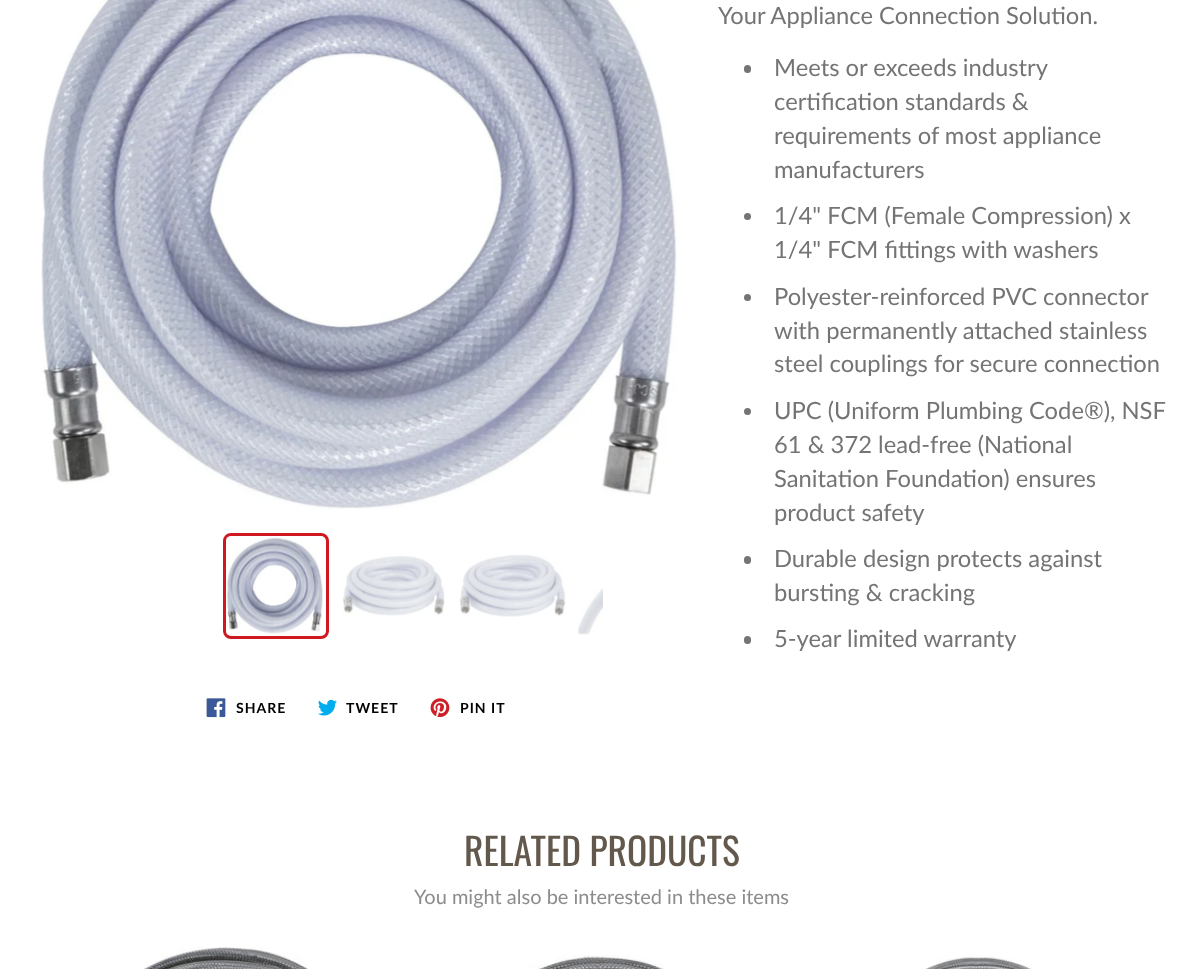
<svg xmlns="http://www.w3.org/2000/svg" width="1203" height="969" viewBox="0 0 1203 969">
  <rect width="100%" height="100%" fill="#fff"/>
  <rect x="744" y="65" width="7" height="8" rx="3.5" fill="#757474"/>
  <circle cx="747.5" cy="216.5" r="3.5" fill="#757474"/>
  <circle cx="747.5" cy="297.5" r="3.5" fill="#757474"/>
  <circle cx="747.5" cy="411.5" r="3.5" fill="#757474"/>
  <rect x="744" y="556" width="7" height="8" rx="3.5" fill="#757474"/>
  <rect x="744" y="636" width="7" height="8" rx="3.5" fill="#757474"/>
  <image x="41" y="0" width="636" height="510" href="img/1.png"/>
  <rect x="224.5" y="534.5" width="103" height="103" rx="6.5" fill="none" stroke="#cf181f" stroke-width="3"/>
  <image x="226" y="537" width="97" height="98" href="img/2.png"/>
  <image x="343" y="555" width="102" height="61" href="img/3.png"/>
  <image x="460" y="554" width="106" height="63" href="img/4.png"/>
  <image x="578" y="588" width="25" height="47" href="img/5.png"/>
  <image x="206" y="698" width="20" height="20" href="img/6.png"/>
  <image x="318" y="699" width="19" height="17" href="img/7.png"/>
  <image x="430" y="698" width="20" height="19" href="img/8.png"/>
  <image x="144" y="947" width="164" height="22" href="img/9.png"/>
  <image x="529" y="955" width="135" height="14" href="img/10.png"/>
  <image x="925" y="956" width="109" height="13" href="img/11.png"/>
  <g font-family="Lato" font-size="23.75" fill="#757474">
    <text x="718" y="24">Your Appliance Connection Solution.</text>
    <text x="774" y="76">Meets or exceeds industry</text>
    <text x="774" y="110">certification standards &amp;</text>
    <text x="774" y="144">requirements of most appliance</text>
    <text x="774" y="178">manufacturers</text>
    <text x="774" y="224">1/4" FCM (Female Compression) x</text>
    <text x="774" y="258">1/4" FCM fittings with washers</text>
    <text x="774" y="305">Polyester-reinforced PVC connector</text>
    <text x="774" y="339">with permanently attached stainless</text>
    <text x="774" y="372">steel couplings for secure connection</text>
    <text x="774" y="419">UPC (Uniform Plumbing Code®), NSF</text>
    <text x="774" y="453">61 &amp; 372 lead-free (National</text>
    <text x="774" y="487">Sanitation Foundation) ensures</text>
    <text x="774" y="521">product safety</text>
    <text x="774" y="567">Durable design protects against</text>
    <text x="774" y="601">bursting &amp; cracking</text>
    <text x="774" y="647">5-year limited warranty</text>
  </g>
  <g font-family="Lato" font-size="14" font-weight="bold" letter-spacing="1" fill="#000">
    <text x="236" y="713">SHARE</text>
    <text x="346" y="713">TWEET</text>
    <text x="460" y="713">PIN IT</text>
  </g>
  <text x="464" y="866" font-family="Oswald" font-size="37.5" fill="#63584c">RELATED PRODUCTS</text>
  <text x="414" y="904" font-family="Lato" font-size="20" fill="#8c8c8c">You might also be interested in these items</text>
</svg>
